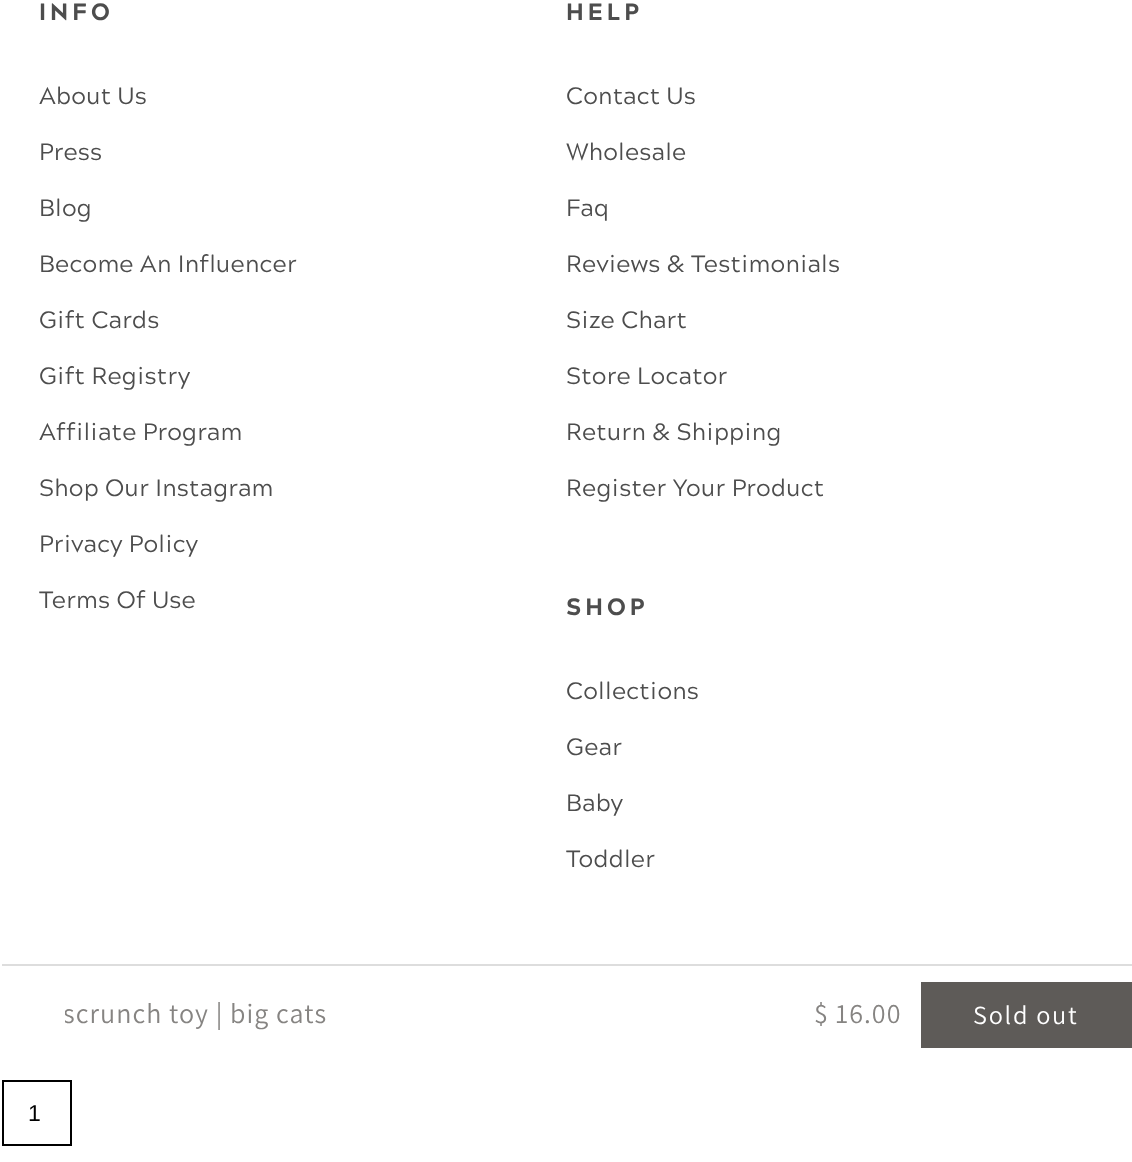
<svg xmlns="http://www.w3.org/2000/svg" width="1132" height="1162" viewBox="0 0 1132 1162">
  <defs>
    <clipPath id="clip1"><path d="M65 991h262v49H65z"/></clipPath>
  </defs>
  <rect width="100%" height="100%" fill="#fff"/>
  <path d="M2 964h1130v2H2z" fill="#ddd"/>
  <path d="M921 982h211v66H921z" fill="#5e5b58"/>
  <path d="M3 1081h68v64H3z" fill="none" stroke="#000" stroke-width="2"/>
  <text x="39" y="20" font-family="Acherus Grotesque" font-size="23.6" font-weight="800" letter-spacing="4" fill="#4d4d4d">INFO</text>
  <g font-family="Acherus Grotesque" font-size="23.6" letter-spacing="0.25" fill="#4d4d4d">
    <text x="39" y="104">About Us</text>
    <text x="39" y="160">Press</text>
    <text x="39" y="216">Blog</text>
    <text x="39" y="272">Become An Influencer</text>
    <text x="39" y="328">Gift Cards</text>
    <text x="39" y="384">Gift Registry</text>
    <text x="39" y="440">Affiliate Program</text>
    <text x="39" y="496">Shop Our Instagram</text>
    <text x="39" y="552">Privacy Policy</text>
    <text x="39" y="608">Terms Of Use</text>
  </g>
  <text x="566" y="20" font-family="Acherus Grotesque" font-size="23.6" font-weight="800" letter-spacing="4" fill="#4d4d4d">HELP</text>
  <g font-family="Acherus Grotesque" font-size="23.6" letter-spacing="0.25" fill="#4d4d4d">
    <text x="566" y="104">Contact Us</text>
    <text x="566" y="160">Wholesale</text>
    <text x="566" y="216">Faq</text>
    <text x="566" y="272">Reviews &amp; Testimonials</text>
    <text x="566" y="328">Size Chart</text>
    <text x="566" y="384">Store Locator</text>
    <text x="566" y="440">Return &amp; Shipping</text>
    <text x="566" y="496">Register Your Product</text>
  </g>
  <text x="566" y="615" font-family="Acherus Grotesque" font-size="23.6" font-weight="800" letter-spacing="4" fill="#4d4d4d">SHOP</text>
  <g font-family="Acherus Grotesque" font-size="23.6" letter-spacing="0.25" fill="#4d4d4d">
    <text x="566" y="699">Collections</text>
    <text x="566" y="755">Gear</text>
    <text x="566" y="811">Baby</text>
    <text x="566" y="867">Toddler</text>
  </g>
  <g clip-path="url(#clip1)">
    <text x="63" y="1023" font-family="Assistant" font-size="28" letter-spacing="1.05" fill="#868482">scrunch toy | big cats</text>
  </g>
  <text x="814" y="1023" font-family="Assistant" font-size="28" letter-spacing="1.05" fill="#868482">$ 16.00</text>
  <text x="973" y="1024" font-family="Assistant" font-size="26.25" letter-spacing="1.75" fill="#fff">Sold out</text>
  <text x="28" y="1121" font-family="Liberation Sans" font-size="23" fill="#000">1</text>
</svg>
